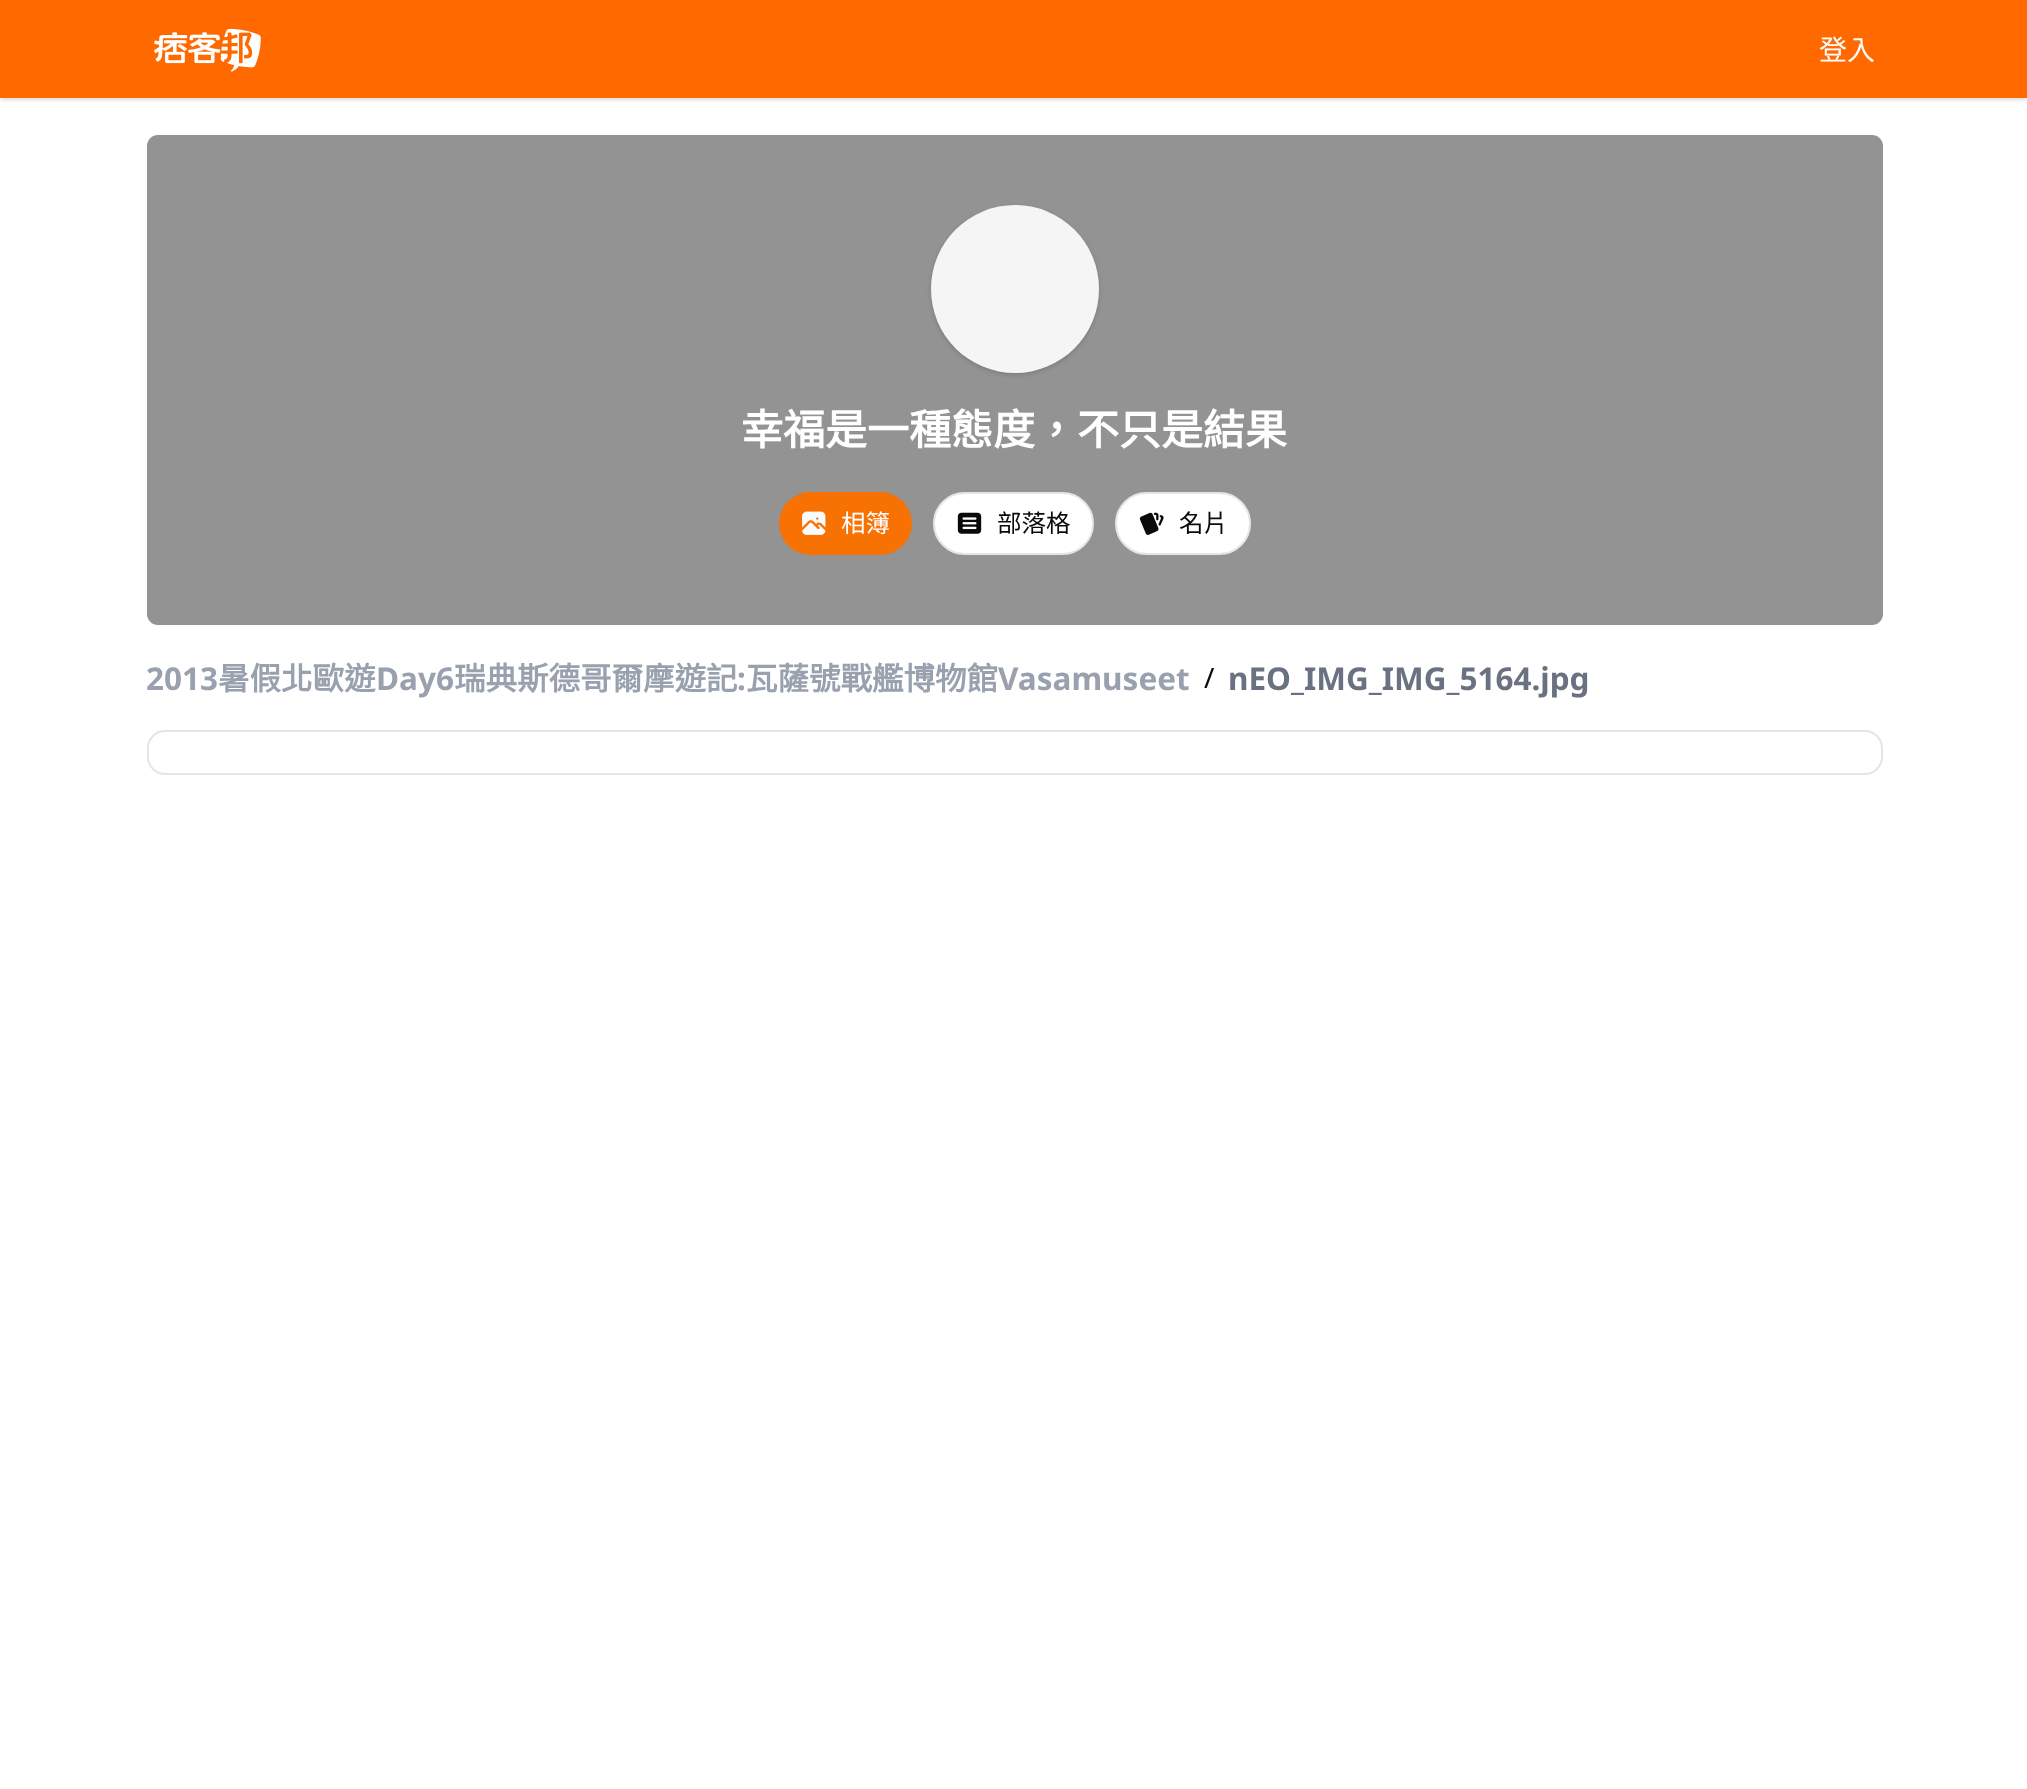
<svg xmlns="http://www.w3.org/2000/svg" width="2027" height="1789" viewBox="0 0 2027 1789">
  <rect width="100%" height="100%" fill="#fff"/>
  <path d="M2 4h2025v94H2z" fill="#0000001a" filter="blur(2px)"/>
  <path d="M0 2h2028v98H0z" fill="#0000001a" filter="blur(2.5px)"/>
  <path d="M0 0h2027v98H0z" fill="#ff6900"/>
  <image x="154" y="28" width="107" height="44" href="img/1.png"/>
  <rect x="147" y="135" width="1736" height="490" rx="11" fill="#f5f5f5"/>
  <rect x="147" y="135" width="1736" height="490" rx="11" fill="#00000066"/>
  <rect x="933" y="208" width="164" height="165" rx="82" fill="#0000001a" filter="blur(2px)"/>
  <rect x="931" y="207" width="168" height="168" rx="84" fill="#0000001a" filter="blur(2.5px)"/>
  <circle cx="1015" cy="289" r="84" fill="#f5f5f5"/>
  <rect x="779" y="492" width="133" height="63" rx="31.5" fill="#f87103"/>
  <image x="802" y="511" width="24" height="24" href="img/2.png"/>
  <rect x="934" y="493" width="159" height="61" rx="30.5" fill="#fff" stroke="#e5e5e5" stroke-width="2"/>
  <image x="957" y="512" width="25" height="22" href="img/3.png"/>
  <rect x="1116" y="493" width="134" height="61" rx="30.5" fill="#fff" stroke="#e5e5e5" stroke-width="2"/>
  <image x="1139" y="512" width="25" height="23" href="img/4.png"/>
  <rect x="148" y="731" width="1734" height="43" rx="17" fill="none" stroke="#e5e5e5" stroke-width="2"/>
  <text x="1819" y="60" font-family="Noto Sans CJK TC" font-size="28" fill="#fff">登入</text>
  <text x="741" y="445" font-family="Noto Sans CJK TC" font-size="42" font-weight="bold" fill="#fff">幸福是一種態度，不只是結果</text>
  <text x="841" y="532" font-family="Noto Sans CJK TC" font-size="24.5" fill="#fff">相簿</text>
  <g font-family="Noto Sans CJK TC" font-size="24.5" fill="#0a0a0a">
    <text x="997" y="532">部落格</text>
    <text x="1179" y="532">名片</text>
  </g>
  <text x="146" y="690" font-family="Noto Sans" font-size="31.5" font-weight="bold" fill="#99a1af">2013</text>
  <text x="218" y="690" font-family="Noto Sans CJK TC" font-size="31.5" font-weight="bold" fill="#99a1af">暑假北歐遊</text>
  <text x="376" y="690" font-family="Noto Sans" font-size="31.5" font-weight="bold" fill="#99a1af">Day6</text>
  <text x="454" y="690" font-family="Noto Sans CJK TC" font-size="31.5" font-weight="bold" fill="#99a1af">瑞典斯德哥爾摩遊記</text>
  <text x="737" y="690" font-family="Noto Sans" font-size="31.5" font-weight="bold" fill="#99a1af">:</text>
  <text x="746" y="690" font-family="Noto Sans CJK TC" font-size="31.5" font-weight="bold" fill="#99a1af">瓦薩號戰艦博物館</text>
  <text x="998" y="690" font-family="Noto Sans" font-size="31.5" font-weight="bold" fill="#99a1af">Vasamuseet</text>
  <text x="1204" y="688" font-family="Noto Sans" font-size="28" fill="#0a0a0a">/</text>
  <text x="1228" y="690" font-family="Noto Sans" font-size="31.5" font-weight="bold" fill="#6a7282">nEO_IMG_IMG_5164.jpg</text>
</svg>
